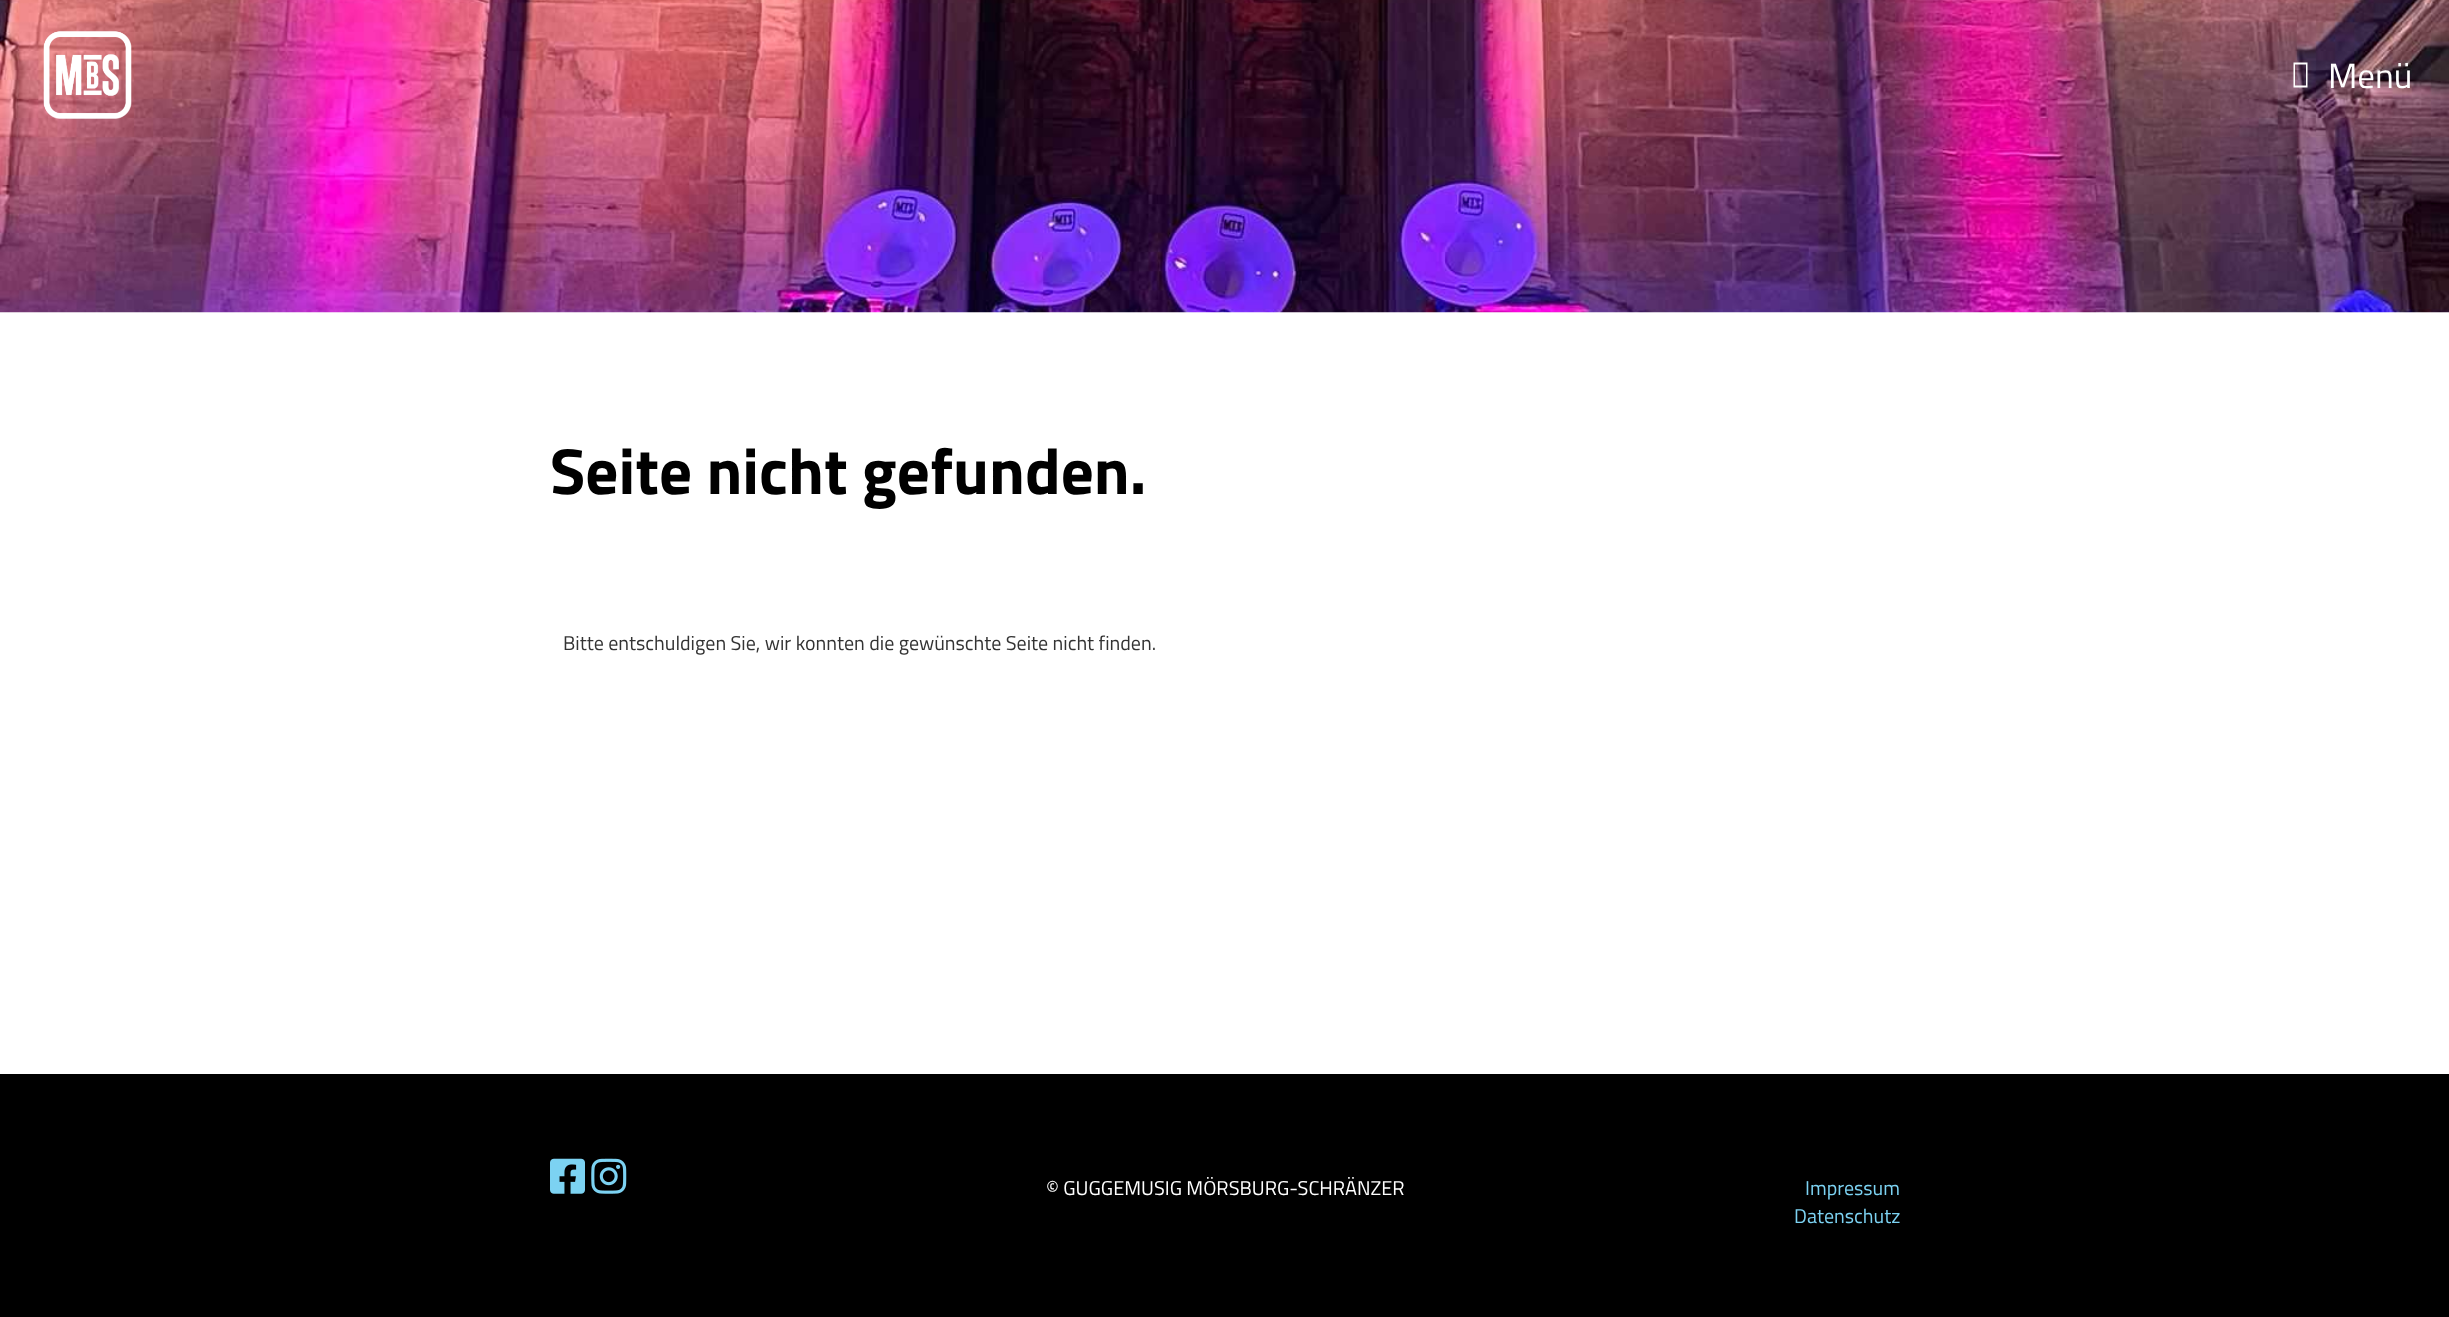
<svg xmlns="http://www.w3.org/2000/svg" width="2449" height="1317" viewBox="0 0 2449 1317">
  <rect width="100%" height="100%" fill="#fff"/>
  <image x="0" y="0" width="2449" height="313" href="img/2.png"/>
  <image x="43" y="31" width="89" height="88" href="img/1.png"/>
  <path d="M2293.5 87.5V62.5H2307.5V87.5ZM2295 85.5H2306V64.5H2295Z" fill="#fff"/>
  <path d="M0 1074h2449v243H0z" fill="#000"/>
  <image x="550" y="1158" width="35" height="36" href="img/3.png"/>
  <image x="591" y="1158" width="36" height="36" href="img/4.png"/>
  <text x="2328" y="88" font-family="Titillium Web" font-size="35" fill="#fff">Menü</text>
  <text x="550" y="494" font-family="Titillium Web" font-size="65" font-weight="bold" fill="#000">Seite nicht gefunden.</text>
  <text x="563" y="650" font-family="Titillium Web" font-size="20" fill="#333">Bitte entschuldigen Sie, wir konnten die gewünschte Seite nicht finden.</text>
  <text x="1046" y="1195" font-family="Titillium Web" font-size="20" fill="#fff">© GUGGEMUSIG MÖRSBURG-SCHRÄNZER</text>
  <g font-family="Titillium Web" font-size="20" fill="#7cd2f2">
    <text x="1805" y="1195">Impressum</text>
    <text x="1794" y="1223">Datenschutz</text>
  </g>
</svg>
